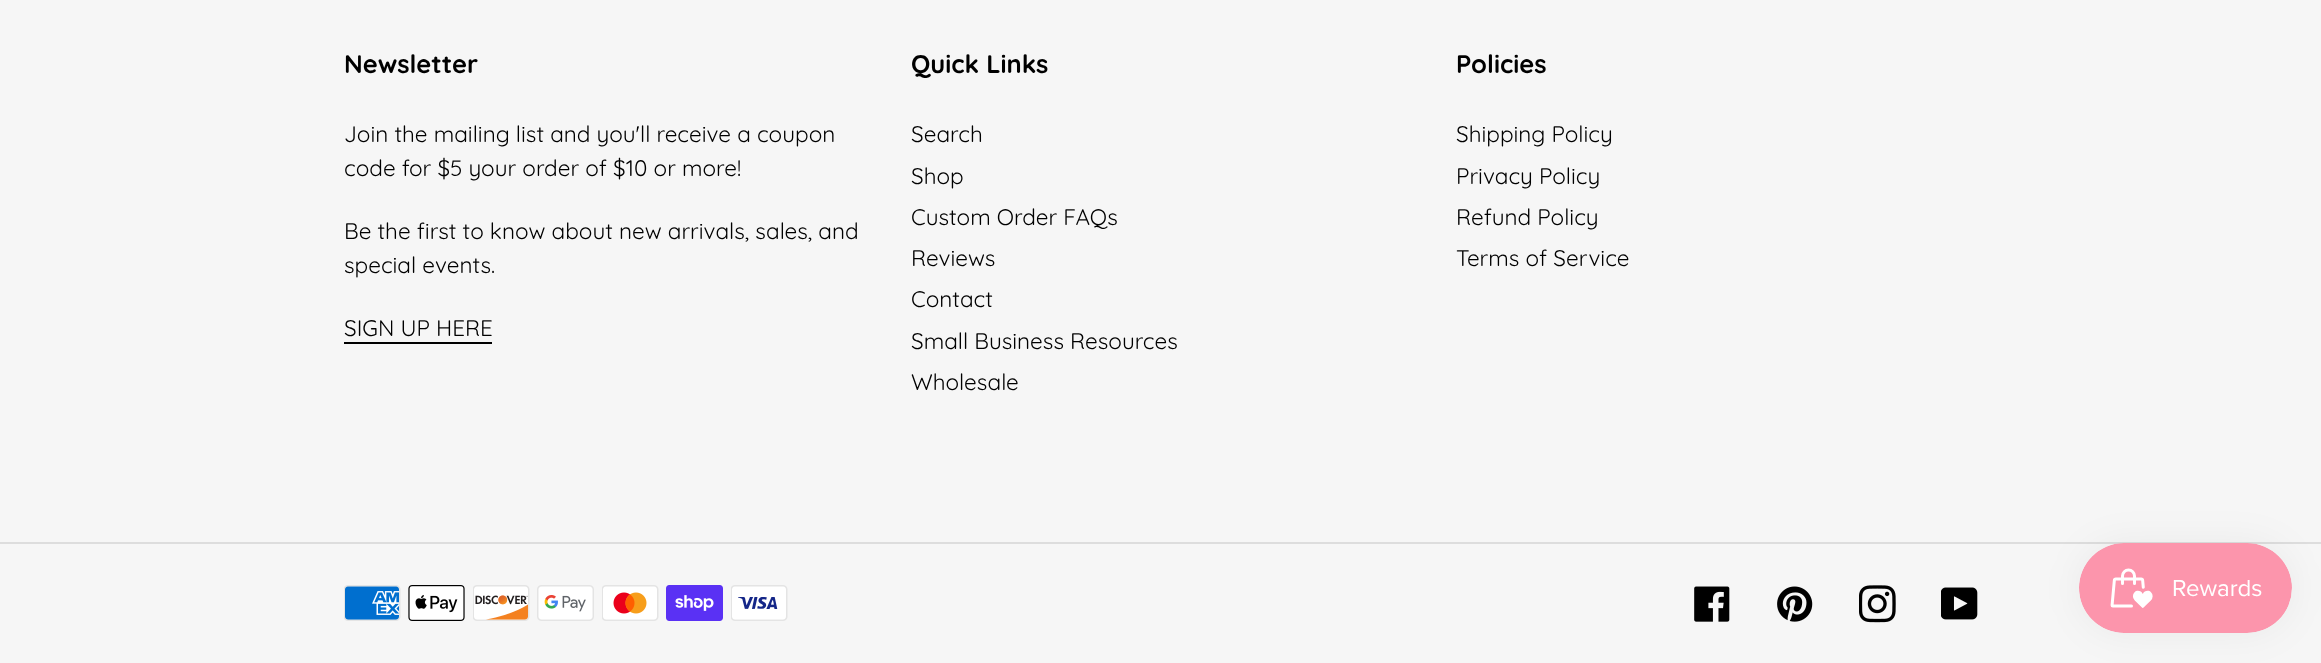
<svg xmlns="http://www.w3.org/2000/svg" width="2321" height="663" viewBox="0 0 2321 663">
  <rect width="100%" height="100%" fill="#f6f6f6"/>
  <path d="M344 342h148v2H344z" fill="#000"/>
  <path d="M0 542h2321v2H0z" fill="#ddd"/>
  <image x="344" y="585" width="57" height="36" href="img/1.png"/>
  <image x="408" y="585" width="57" height="36" href="img/2.png"/>
  <image x="473" y="585" width="57" height="36" href="img/3.png"/>
  <image x="537" y="585" width="57" height="36" href="img/4.png"/>
  <image x="602" y="585" width="57" height="36" href="img/5.png"/>
  <image x="666" y="585" width="57" height="36" href="img/6.png"/>
  <image x="731" y="585" width="57" height="36" href="img/7.png"/>
  <image x="1694" y="586" width="36" height="36" href="img/8.png"/>
  <image x="1777" y="586" width="36" height="36" href="img/9.png"/>
  <image x="1859" y="585" width="37" height="38" href="img/10.png"/>
  <image x="1941" y="587" width="37" height="33" href="img/11.png"/>
  <rect x="2079" y="543" width="213" height="90" rx="45" fill="#0000000d" filter="blur(19px)"/>
  <image x="2079" y="543" width="213" height="90" href="img/12.png"/>
  <text x="344" y="73" font-family="Quicksand" font-size="25.5" font-weight="bold" fill="#000">Newsletter</text>
  <g font-family="Quicksand" font-size="22.5" fill="#000">
    <text x="344" y="142">Join the mailing list and you'll receive a coupon</text>
    <text x="344" y="176">code for $5 your order of $10 or more!</text>
    <text x="344" y="239">Be the first to know about new arrivals, sales, and</text>
    <text x="344" y="273">special events.</text>
    <text x="344" y="336">SIGN UP HERE</text>
  </g>
  <text x="911" y="73" font-family="Quicksand" font-size="25.5" font-weight="bold" fill="#000">Quick Links</text>
  <g font-family="Quicksand" font-size="22.5" fill="#000">
    <text x="911" y="142">Search</text>
    <text x="911" y="184">Shop</text>
    <text x="911" y="225">Custom Order FAQs</text>
    <text x="911" y="266">Reviews</text>
    <text x="911" y="307">Contact</text>
    <text x="911" y="349">Small Business Resources</text>
    <text x="911" y="390">Wholesale</text>
  </g>
  <text x="1456" y="73" font-family="Quicksand" font-size="25.5" font-weight="bold" fill="#000">Policies</text>
  <g font-family="Quicksand" font-size="22.5" fill="#000">
    <text x="1456" y="142">Shipping Policy</text>
    <text x="1456" y="184">Privacy Policy</text>
    <text x="1456" y="225">Refund Policy</text>
    <text x="1456" y="266">Terms of Service</text>
  </g>
</svg>
